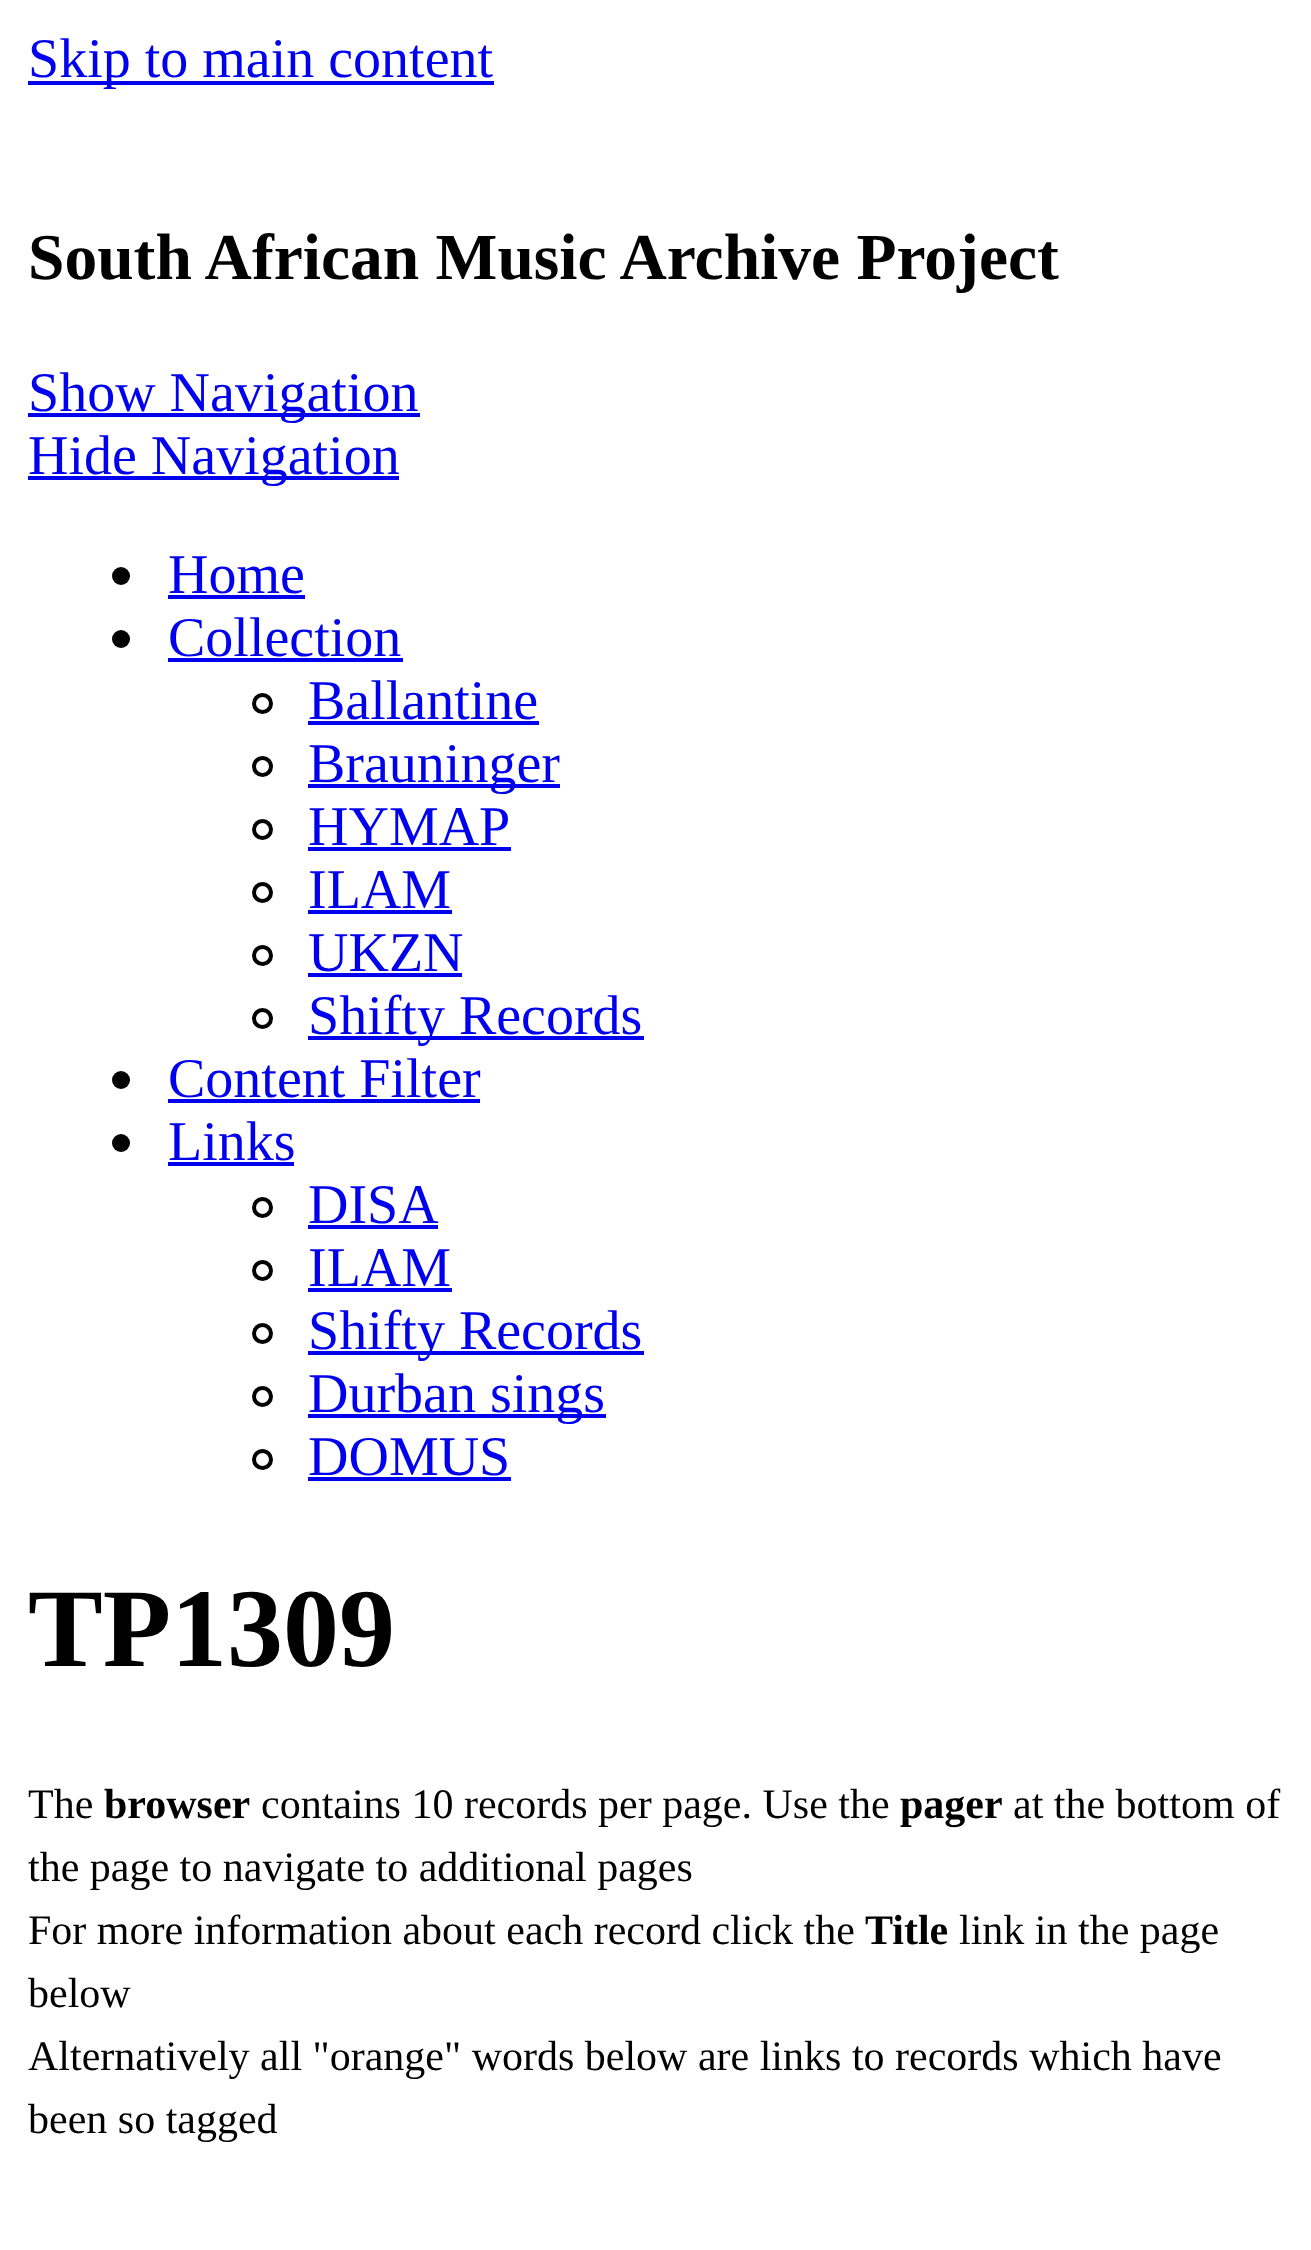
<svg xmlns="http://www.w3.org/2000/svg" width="1311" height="2250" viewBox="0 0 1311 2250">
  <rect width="100%" height="100%" fill="#fff"/>
  <path d="M28 81h466v4H28z" fill="#00e"/>
  <path d="M28 413h392v4H28z" fill="#00e"/>
  <path d="M28 476h371v4H28z" fill="#00e"/>
  <circle cx="121" cy="576" r="9" fill="#000"/>
  <path d="M168 595h137v4H168z" fill="#00e"/>
  <circle cx="121" cy="639" r="9" fill="#000"/>
  <path d="M168 658h235v4H168z" fill="#00e"/>
  <circle cx="262.5" cy="703.5" r="8.5" fill="none" stroke="#000" stroke-width="4"/>
  <path d="M308 721h231v4H308z" fill="#00e"/>
  <circle cx="262.5" cy="766.5" r="8.5" fill="none" stroke="#000" stroke-width="4"/>
  <path d="M308 784h252v4H308z" fill="#00e"/>
  <circle cx="262.5" cy="829.5" r="8.5" fill="none" stroke="#000" stroke-width="4"/>
  <path d="M308 847h203v4H308z" fill="#00e"/>
  <circle cx="262.5" cy="892.5" r="8.5" fill="none" stroke="#000" stroke-width="4"/>
  <path d="M308 910h144v4H308z" fill="#00e"/>
  <circle cx="262.5" cy="955.5" r="8.5" fill="none" stroke="#000" stroke-width="4"/>
  <path d="M308 973h154v4H308z" fill="#00e"/>
  <circle cx="262.5" cy="1018.5" r="8.5" fill="none" stroke="#000" stroke-width="4"/>
  <path d="M308 1036h336v4H308z" fill="#00e"/>
  <circle cx="121" cy="1080" r="9" fill="#000"/>
  <path d="M168 1099h312v4H168z" fill="#00e"/>
  <circle cx="121" cy="1143" r="9" fill="#000"/>
  <path d="M168 1162h126v4H168z" fill="#00e"/>
  <circle cx="262.5" cy="1207.5" r="8.5" fill="none" stroke="#000" stroke-width="4"/>
  <path d="M308 1225h130v4H308z" fill="#00e"/>
  <circle cx="262.5" cy="1270.5" r="8.5" fill="none" stroke="#000" stroke-width="4"/>
  <path d="M308 1288h144v4H308z" fill="#00e"/>
  <circle cx="262.5" cy="1333.5" r="8.5" fill="none" stroke="#000" stroke-width="4"/>
  <path d="M308 1351h336v4H308z" fill="#00e"/>
  <circle cx="262.5" cy="1396.5" r="8.5" fill="none" stroke="#000" stroke-width="4"/>
  <path d="M308 1414h298v4H308z" fill="#00e"/>
  <circle cx="262.5" cy="1459.5" r="8.5" fill="none" stroke="#000" stroke-width="4"/>
  <path d="M308 1477h203v4H308z" fill="#00e"/>
  <text x="28" y="77" font-family="Liberation Serif" font-size="56" fill="#00e">Skip to main content</text>
  <text x="28" y="279" font-family="Liberation Serif" font-size="65.5" font-weight="bold" fill="#000">South African Music Archive Project</text>
  <g font-family="Liberation Serif" font-size="56" fill="#00e">
    <text x="28" y="411">Show Navigation</text>
    <text x="28" y="474">Hide Navigation</text>
    <text x="168" y="593">Home</text>
    <text x="168" y="656">Collection</text>
    <text x="308" y="719">Ballantine</text>
    <text x="308" y="782">Brauninger</text>
    <text x="308" y="845">HYMAP</text>
    <text x="308" y="908">ILAM</text>
    <text x="308" y="971">UKZN</text>
    <text x="308" y="1034">Shifty Records</text>
    <text x="168" y="1097">Content Filter</text>
    <text x="168" y="1160">Links</text>
    <text x="308" y="1223">DISA</text>
    <text x="308" y="1286">ILAM</text>
    <text x="308" y="1349">Shifty Records</text>
    <text x="308" y="1412">Durban sings</text>
    <text x="308" y="1475">DOMUS</text>
  </g>
  <text x="28" y="1666" font-family="Liberation Serif" font-size="112" font-weight="bold" fill="#000">TP1309</text>
  <text x="28" y="1818" font-family="Liberation Serif" font-size="42" fill="#000">The</text>
  <text x="104" y="1818" font-family="Liberation Serif" font-size="42" font-weight="bold" fill="#000">browser</text>
  <text x="261" y="1818" font-family="Liberation Serif" font-size="42" fill="#000">contains 10 records per page. Use the</text>
  <text x="900" y="1818" font-family="Liberation Serif" font-size="42" font-weight="bold" fill="#000">pager</text>
  <g font-family="Liberation Serif" font-size="42" fill="#000">
    <text x="1013" y="1818">at the bottom of</text>
    <text x="28" y="1881">the page to navigate to additional pages</text>
    <text x="28" y="1944">For more information about each record click the</text>
  </g>
  <text x="865" y="1944" font-family="Liberation Serif" font-size="42" font-weight="bold" fill="#000">Title</text>
  <g font-family="Liberation Serif" font-size="42" fill="#000">
    <text x="959" y="1944">link in the page</text>
    <text x="28" y="2007">below</text>
    <text x="28" y="2070">Alternatively all "orange" words below are links to records which have</text>
    <text x="28" y="2133">been so tagged</text>
  </g>
</svg>
